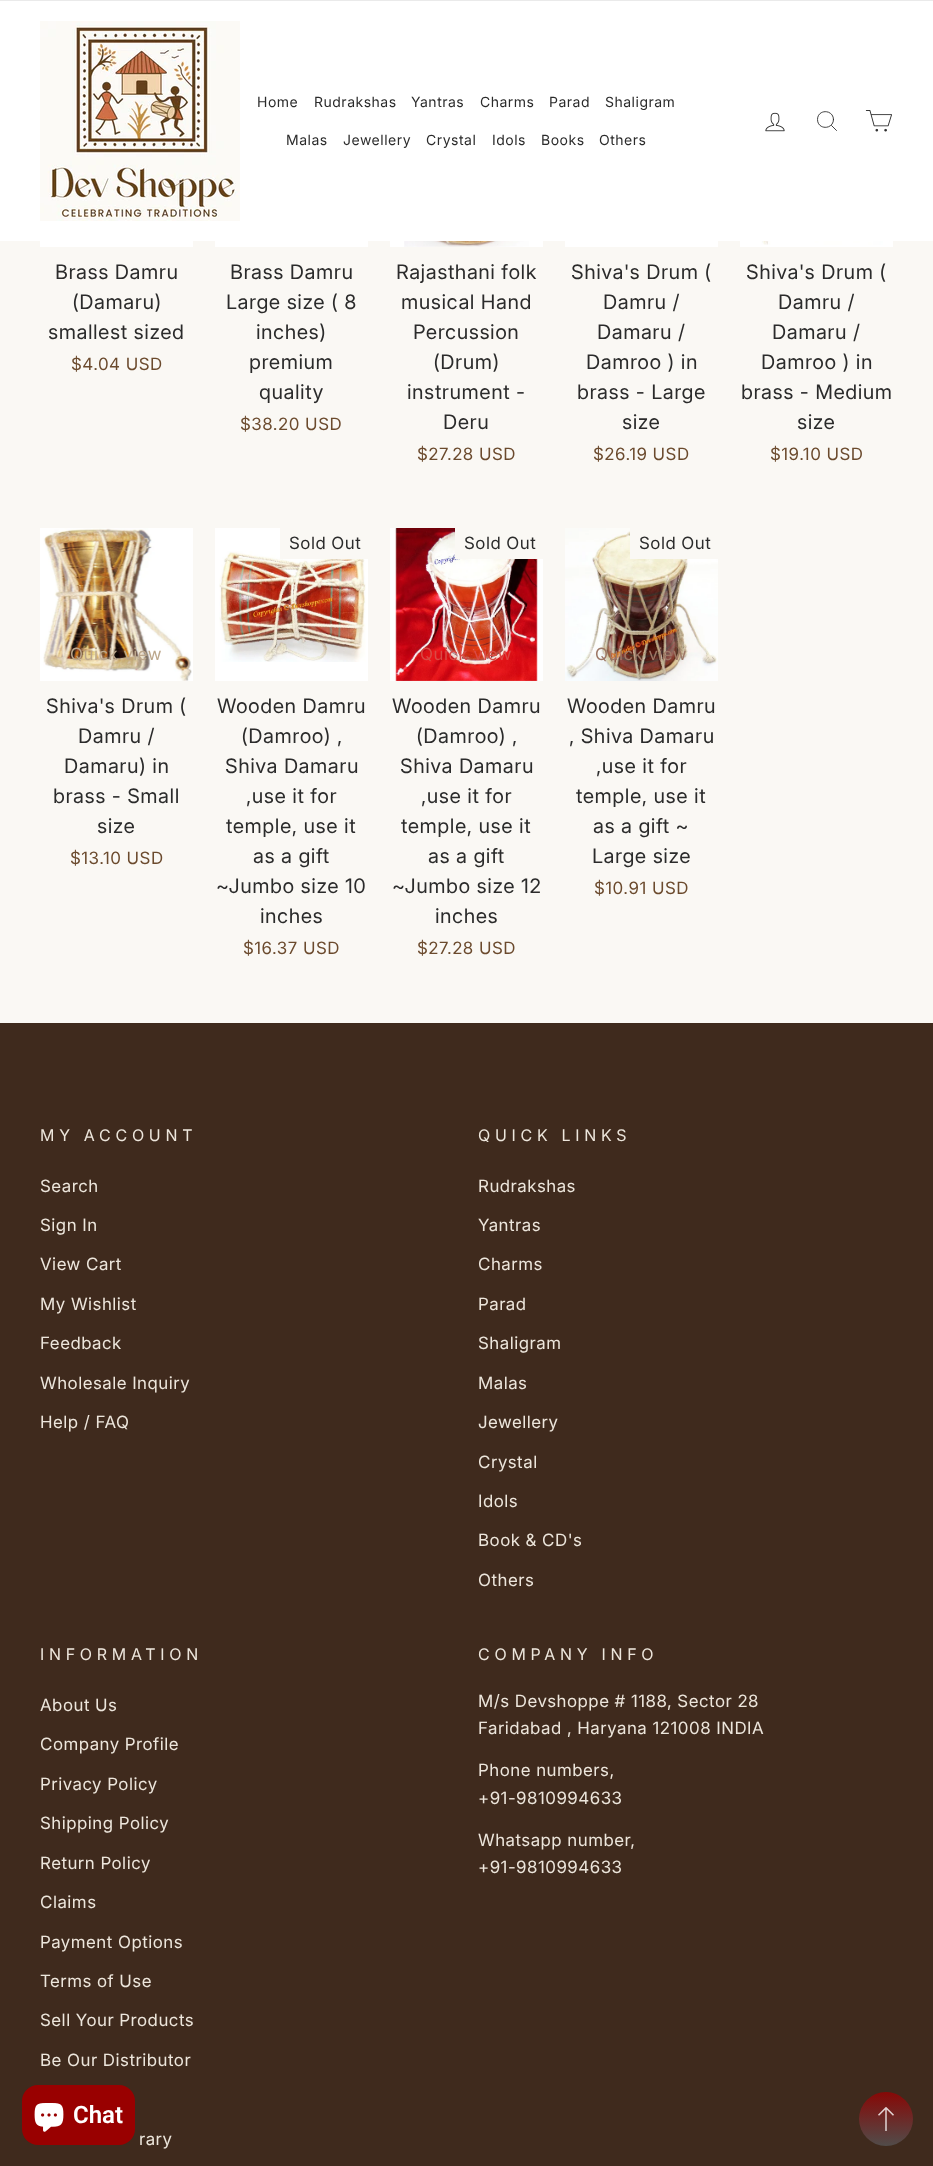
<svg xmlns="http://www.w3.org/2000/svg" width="933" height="2166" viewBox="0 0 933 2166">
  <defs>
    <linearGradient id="g1" gradientUnits="userSpaceOnUse" x1="886" y1="2092" x2="886" y2="2146"><stop offset="0" stop-color="#870806"/><stop offset="1" stop-color="#514c4a"/></linearGradient>
  </defs>
  <rect width="100%" height="100%" fill="#faf8f4"/>
  <path d="M0 1h933v240H0z" fill="#fff"/>
  <path d="M0 0h933v1H0z" fill="#eaeaea"/>
  <image x="40" y="21" width="200" height="200" href="img/1.png"/>
  <image x="765" y="112" width="20" height="20" href="img/2.png"/>
  <path d="M833.5 119.5C833.5 130 817.5 130 817.5 119.5C817.5 109 833.5 109 833.5 119.5ZM836.5 130.5L831.5 125.5" fill="none" stroke="#2b2b2b" stroke-width="0.9" stroke-linecap="round" stroke-linejoin="round"/>
  <image x="865" y="110" width="27" height="22" href="img/3.png"/>
  <path d="M40 241h153v6H40z" fill="#fff"/>
  <path d="M215 241h153v6H215z" fill="#fff"/>
  <path d="M390 241h153v6H390z" fill="#fff"/>
  <image x="404" y="241" width="125" height="6" href="img/4.png"/>
  <path d="M565 241h153v6H565z" fill="#fff"/>
  <path d="M740 241h153v6H740z" fill="#fff"/>
  <image x="759" y="241" width="124" height="4" href="img/5.png"/>
  <path d="M40 528h153v153H40z" fill="#fff"/>
  <image x="43" y="528" width="149" height="153" href="img/6.png"/>
  <path d="M215 528h153v153H215z" fill="#fff"/>
  <image x="219" y="550" width="147" height="112" href="img/7.png"/>
  <path d="M280 528h88v31H280z" fill="#faf8f4"/>
  <path d="M390 528h153v153H390z" fill="#fff"/>
  <image x="395" y="528" width="143" height="153" href="img/8.png"/>
  <path d="M455 528h88v31H455z" fill="#faf8f4"/>
  <image x="565" y="528" width="153" height="153" href="img/9.png"/>
  <path d="M630 528h88v31H630z" fill="#faf8f4"/>
  <path d="M0 1023h933v1143H0z" fill="#3f2a1d"/>
  <rect x="22" y="2085" width="113" height="60" rx="16" fill="#900"/>
  <image x="34" y="2103" width="30" height="29" href="img/10.png"/>
  <circle cx="886" cy="2119" r="27" fill="url(#g1)"/>
  <image x="878" y="2107" width="16" height="24" href="img/11.png"/>
  <g font-family="'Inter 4'" font-size="14" letter-spacing="0.5" fill="#2b2b2b">
    <text x="257" y="107">Home</text>
    <text x="314" y="107">Rudrakshas</text>
    <text x="411" y="107">Yantras</text>
    <text x="480" y="107">Charms</text>
    <text x="549" y="107">Parad</text>
    <text x="605" y="107">Shaligram</text>
    <text x="286" y="145">Malas</text>
    <text x="343" y="145">Jewellery</text>
    <text x="426" y="145">Crystal</text>
    <text x="492" y="145">Idols</text>
    <text x="541" y="145">Books</text>
    <text x="599" y="145">Others</text>
  </g>
  <g font-family="'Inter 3'" font-size="20" letter-spacing="0.5" fill="#2b2b2b">
    <text x="55" y="279">Brass Damru</text>
    <text x="72" y="309">(Damaru)</text>
    <text x="48" y="339">smallest sized</text>
  </g>
  <text x="71" y="370" font-family="'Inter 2'" font-size="17" letter-spacing="0.5" fill="#6b4a2d">$4.04 USD</text>
  <g font-family="'Inter 3'" font-size="20" letter-spacing="0.5" fill="#2b2b2b">
    <text x="230" y="279">Brass Damru</text>
    <text x="226" y="309">Large size ( 8</text>
    <text x="256" y="339">inches)</text>
    <text x="249" y="369">premium</text>
    <text x="259" y="399">quality</text>
  </g>
  <text x="240" y="430" font-family="'Inter 2'" font-size="17" letter-spacing="0.5" fill="#6b4a2d">$38.20 USD</text>
  <g font-family="'Inter 3'" font-size="20" letter-spacing="0.5" fill="#2b2b2b">
    <text x="396" y="279">Rajasthani folk</text>
    <text x="401" y="309">musical Hand</text>
    <text x="413" y="339">Percussion</text>
    <text x="433" y="369">(Drum)</text>
    <text x="407" y="399">instrument -</text>
    <text x="443" y="429">Deru</text>
  </g>
  <text x="417" y="460" font-family="'Inter 2'" font-size="17" letter-spacing="0.5" fill="#6b4a2d">$27.28 USD</text>
  <g font-family="'Inter 3'" font-size="20" letter-spacing="0.5" fill="#2b2b2b">
    <text x="571" y="279">Shiva's Drum (</text>
    <text x="603" y="309">Damru /</text>
    <text x="597" y="339">Damaru /</text>
    <text x="586" y="369">Damroo ) in</text>
    <text x="577" y="399">brass - Large</text>
    <text x="622" y="429">size</text>
  </g>
  <text x="593" y="460" font-family="'Inter 2'" font-size="17" letter-spacing="0.5" fill="#6b4a2d">$26.19 USD</text>
  <g font-family="'Inter 3'" font-size="20" letter-spacing="0.5" fill="#2b2b2b">
    <text x="746" y="279">Shiva's Drum (</text>
    <text x="778" y="309">Damru /</text>
    <text x="772" y="339">Damaru /</text>
    <text x="761" y="369">Damroo ) in</text>
    <text x="741" y="399">brass - Medium</text>
    <text x="797" y="429">size</text>
  </g>
  <text x="770" y="460" font-family="'Inter 2'" font-size="17" letter-spacing="0.5" fill="#6b4a2d">$19.10 USD</text>
  <text x="70" y="660" font-family="'Inter 2'" font-size="17" letter-spacing="0.5" fill="#bca78c">Quick view</text>
  <g font-family="'Inter 3'" font-size="20" letter-spacing="0.5" fill="#2b2b2b">
    <text x="46" y="713">Shiva's Drum (</text>
    <text x="78" y="743">Damru /</text>
    <text x="64" y="773">Damaru) in</text>
    <text x="53" y="803">brass - Small</text>
    <text x="97" y="833">size</text>
  </g>
  <text x="70" y="864" font-family="'Inter 2'" font-size="17" letter-spacing="0.5" fill="#6b4a2d">$13.10 USD</text>
  <text x="289" y="549" font-family="'Inter 2'" font-size="17" letter-spacing="0.5" fill="#2b2b2b">Sold Out</text>
  <g font-family="'Inter 3'" font-size="20" letter-spacing="0.5" fill="#2b2b2b">
    <text x="217" y="713">Wooden Damru</text>
    <text x="241" y="743">(Damroo) ,</text>
    <text x="225" y="773">Shiva Damaru</text>
    <text x="246" y="803">,use it for</text>
    <text x="226" y="833">temple, use it</text>
    <text x="253" y="863">as a gift</text>
    <text x="216" y="893">~Jumbo size 10</text>
    <text x="260" y="923">inches</text>
  </g>
  <text x="243" y="954" font-family="'Inter 2'" font-size="17" letter-spacing="0.5" fill="#6b4a2d">$16.37 USD</text>
  <text x="464" y="549" font-family="'Inter 2'" font-size="17" letter-spacing="0.5" fill="#2b2b2b">Sold Out</text>
  <text x="420" y="660" font-family="'Inter 2'" font-size="17" letter-spacing="0.5" fill="#d94a45">Quick view</text>
  <g font-family="'Inter 3'" font-size="20" letter-spacing="0.5" fill="#2b2b2b">
    <text x="392" y="713">Wooden Damru</text>
    <text x="416" y="743">(Damroo) ,</text>
    <text x="400" y="773">Shiva Damaru</text>
    <text x="421" y="803">,use it for</text>
    <text x="401" y="833">temple, use it</text>
    <text x="428" y="863">as a gift</text>
    <text x="392" y="893">~Jumbo size 12</text>
    <text x="435" y="923">inches</text>
  </g>
  <text x="417" y="954" font-family="'Inter 2'" font-size="17" letter-spacing="0.5" fill="#6b4a2d">$27.28 USD</text>
  <text x="639" y="549" font-family="'Inter 2'" font-size="17" letter-spacing="0.5" fill="#2b2b2b">Sold Out</text>
  <text x="595" y="660" font-family="'Inter 2'" font-size="17" letter-spacing="0.5" fill="#9d7765">Quick view</text>
  <g font-family="'Inter 3'" font-size="20" letter-spacing="0.5" fill="#2b2b2b">
    <text x="567" y="713">Wooden Damru</text>
    <text x="569" y="743">, Shiva Damaru</text>
    <text x="596" y="773">,use it for</text>
    <text x="576" y="803">temple, use it</text>
    <text x="593" y="833">as a gift ~</text>
    <text x="592" y="863">Large size</text>
  </g>
  <text x="594" y="894" font-family="'Inter 2'" font-size="17" letter-spacing="0.5" fill="#6b4a2d">$10.91 USD</text>
  <text x="40" y="1141" font-family="Inter" font-size="16" letter-spacing="4.75" fill="#ede6dc">MY ACCOUNT</text>
  <g font-family="'Inter 2'" font-size="17" letter-spacing="0.5" fill="#ede6dc">
    <text x="40" y="1192">Search</text>
    <text x="40" y="1231">Sign In</text>
    <text x="40" y="1270">View Cart</text>
    <text x="40" y="1310">My Wishlist</text>
    <text x="40" y="1349">Feedback</text>
    <text x="40" y="1389">Wholesale Inquiry</text>
    <text x="40" y="1428">Help / FAQ</text>
  </g>
  <text x="478" y="1141" font-family="Inter" font-size="16" letter-spacing="4.75" fill="#ede6dc">QUICK LINKS</text>
  <g font-family="'Inter 2'" font-size="17" letter-spacing="0.5" fill="#ede6dc">
    <text x="478" y="1192">Rudrakshas</text>
    <text x="478" y="1231">Yantras</text>
    <text x="478" y="1270">Charms</text>
    <text x="478" y="1310">Parad</text>
    <text x="478" y="1349">Shaligram</text>
    <text x="478" y="1389">Malas</text>
    <text x="478" y="1428">Jewellery</text>
    <text x="478" y="1468">Crystal</text>
    <text x="478" y="1507">Idols</text>
    <text x="478" y="1546">Book &amp; CD's</text>
    <text x="478" y="1586">Others</text>
  </g>
  <text x="40" y="1660" font-family="Inter" font-size="16" letter-spacing="4.75" fill="#ede6dc">INFORMATION</text>
  <g font-family="'Inter 2'" font-size="17" letter-spacing="0.5" fill="#ede6dc">
    <text x="40" y="1711">About Us</text>
    <text x="40" y="1750">Company Profile</text>
    <text x="40" y="1790">Privacy Policy</text>
    <text x="40" y="1829">Shipping Policy</text>
    <text x="40" y="1869">Return Policy</text>
    <text x="40" y="1908">Claims</text>
    <text x="40" y="1948">Payment Options</text>
    <text x="40" y="1987">Terms of Use</text>
    <text x="40" y="2026">Sell Your Products</text>
    <text x="40" y="2066">Be Our Distributor</text>
    <text x="139" y="2145">rary</text>
  </g>
  <text x="478" y="1660" font-family="Inter" font-size="16" letter-spacing="4.75" fill="#ede6dc">COMPANY INFO</text>
  <g font-family="'Inter 2'" font-size="17" letter-spacing="0.5" fill="#ede6dc">
    <text x="478" y="1707">M/s Devshoppe # 1188, Sector 28</text>
    <text x="478" y="1734">Faridabad , Haryana 121008 INDIA</text>
    <text x="478" y="1776">Phone numbers,</text>
    <text x="478" y="1804">+91-9810994633</text>
    <text x="478" y="1846">Whatsapp number,</text>
    <text x="478" y="1873">+91-9810994633</text>
  </g>
  <text x="73" y="2123" font-family="Roboto" font-size="24" font-weight="600" fill="#fff">Chat</text>
</svg>
